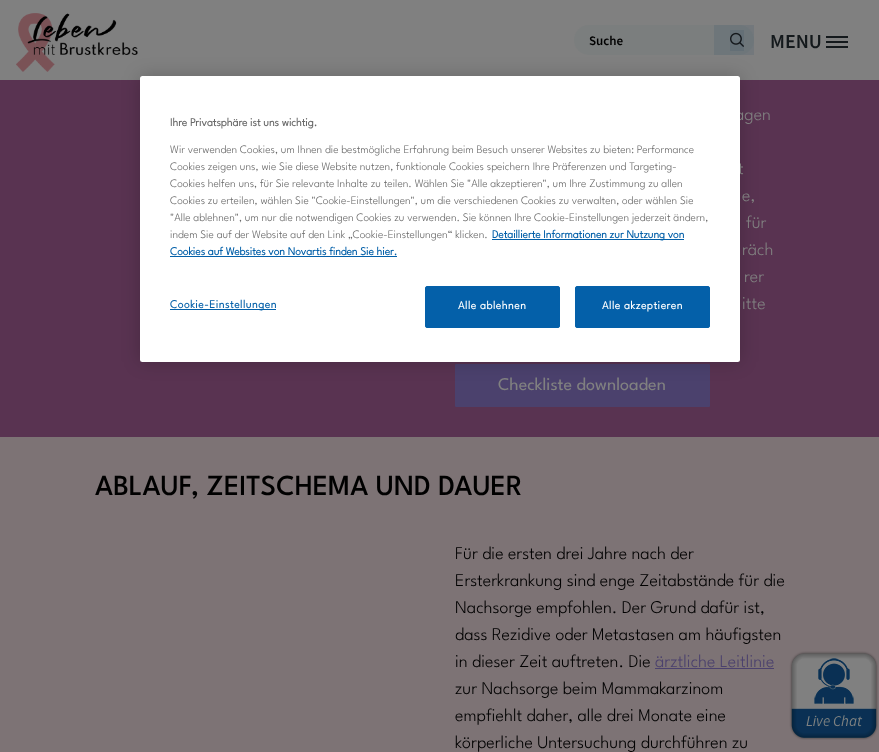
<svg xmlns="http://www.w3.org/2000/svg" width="879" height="752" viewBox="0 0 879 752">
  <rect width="100%" height="100%" fill="#593351"/>
  <path d="M0 0h879v80H0z" fill="#808080"/>
  <image x="16" y="13" width="122" height="59" href="img/1.png"/>
  <rect x="574" y="25" width="180" height="30" rx="15" fill="#7b7e7e"/>
  <path d="M714 25h40v30H714z" fill="#0230551a"/>
  <path d="M730 30h14v21H730z" fill="#646f76"/>
  <image x="730" y="32" width="14" height="15" href="img/2.png"/>
  <path d="M826 36h22v2H826z" fill="#14191c"/>
  <path d="M826 41h22v2H826z" fill="#14191c"/>
  <path d="M826 46h22v2H826z" fill="#14191c"/>
  <rect x="455" y="364" width="255" height="43" rx="1" fill="#4b416d"/>
  <path d="M0 437h879v315H0z" fill="#7d7375"/>
  <path d="M655 668h119v1H655z" fill="#4b416d"/>
  <image x="789" y="651" width="89" height="89" href="img/3.png"/>
  <rect x="140" y="76" width="600" height="286" rx="2.5" fill="#00000033" filter="blur(9px)"/>
  <text x="589" y="45" font-family="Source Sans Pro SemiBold" font-size="13" font-weight="600" fill="#000">Suche</text>
  <text x="770" y="48" font-family="Source Sans Pro SemiBold" font-size="20" font-weight="600" fill="#14191c">MENU</text>
  <g font-family="League Spartan" font-size="18" font-weight="300" fill="#808080">
    <text x="735" y="120">agen</text>
    <text x="738" y="174">t</text>
    <text x="742" y="201">e,</text>
    <text x="746" y="228">für</text>
    <text x="742" y="255">räch</text>
    <text x="744" y="282">rer</text>
    <text x="742" y="309">itte</text>
  </g>
  <text x="498" y="390" font-family="League Spartan" font-size="18" fill="#808080">Checkliste downloaden</text>
  <g font-family="League Spartan" font-size="29" font-weight="500" fill="#000">
    <text x="95" y="495">ABLAUF</text>
    <text x="191" y="495">, ZEITSCHEMA UND DAUER</text>
  </g>
  <g font-family="League Spartan" font-size="18" font-weight="300" fill="#000">
    <text x="455" y="559">Für die ersten drei Jahre nach der</text>
    <text x="455" y="586">Ersterkrankung sind enge Zeitabstände für die</text>
    <text x="455" y="613">Nachsorge empfohlen. Der Grund dafür ist,</text>
    <text x="455" y="640">dass Rezidive oder Metastasen am häufigsten</text>
    <text x="455" y="667">in dieser Zeit auftreten. Die</text>
  </g>
  <text x="655" y="667" font-family="League Spartan" font-size="18" font-weight="300" fill="#4b416d">ärztliche Leitlinie</text>
  <g font-family="League Spartan" font-size="18" font-weight="300" fill="#000">
    <text x="455" y="694">zur Nachsorge beim Mammakarzinom</text>
    <text x="455" y="721">empfiehlt daher, alle drei Monate eine</text>
    <text x="455" y="748">körperliche Untersuchung durchführen zu</text>
  </g>
  <rect x="140" y="76" width="600" height="286" rx="2.5" fill="#fff"/>
  <text x="170" y="126" font-family="League Spartan" font-size="11.4" font-weight="bold" fill="#696969">Ihre Privatsphäre ist uns wichtig.</text>
  <g font-family="League Spartan" font-size="11.4" font-weight="300" fill="#696969">
    <text x="170" y="153">Wir verwenden Cookies, um Ihnen die bestmögliche Erfahrung beim Besuch unserer Websites zu bieten: Performance</text>
    <text x="170" y="170">Cookies zeigen uns, wie Sie diese Website nutzen, funktionale Cookies speichern Ihre Präferenzen und Targeting-</text>
    <text x="170" y="187">Cookies helfen uns, für Sie relevante Inhalte zu teilen. Wählen Sie "Alle akzeptieren", um Ihre Zustimmung zu allen</text>
    <text x="170" y="204">Cookies zu erteilen, wählen Sie "Cookie-Einstellungen", um die verschiedenen Cookies zu verwalten, oder wählen Sie</text>
    <text x="170" y="221">"Alle ablehnen", um nur die notwendigen Cookies zu verwenden. Sie können Ihre Cookie-Einstellungen jederzeit ändern,</text>
    <text x="170" y="238">indem Sie auf der Website auf den Link „Cookie-Einstellungen“ klicken.</text>
  </g>
  <path d="M492 239h192v1H492z" fill="#0460a9"/>
  <g font-family="League Spartan" font-size="11.4" font-weight="bold" fill="#0460a9">
    <text x="492" y="238">Detaillierte Informationen zur Nutzung von</text>
    <text x="170" y="255">Cookies auf Websites von Novartis finden Sie hier.</text>
  </g>
  <path d="M170 256h227v1H170z" fill="#0460a9"/>
  <path d="M170 309h106v1H170z" fill="#0460a9"/>
  <text x="170" y="308" font-family="League Spartan" font-size="11.4" font-weight="bold" letter-spacing="0.6" fill="#0460a9">Cookie-Einstellungen</text>
  <rect x="425.5" y="286.5" width="134" height="41" rx="1.5" fill="#0460a9" stroke="#0460a9"/>
  <text x="458" y="309" font-family="League Spartan" font-size="11.4" font-weight="bold" letter-spacing="0.6" fill="#fff">Alle ablehnen</text>
  <rect x="575.5" y="286.5" width="134" height="41" rx="1.5" fill="#0460a9" stroke="#0460a9"/>
  <text x="602" y="309" font-family="League Spartan" font-size="11.4" font-weight="bold" letter-spacing="0.6" fill="#fff">Alle akzeptieren</text>
</svg>
